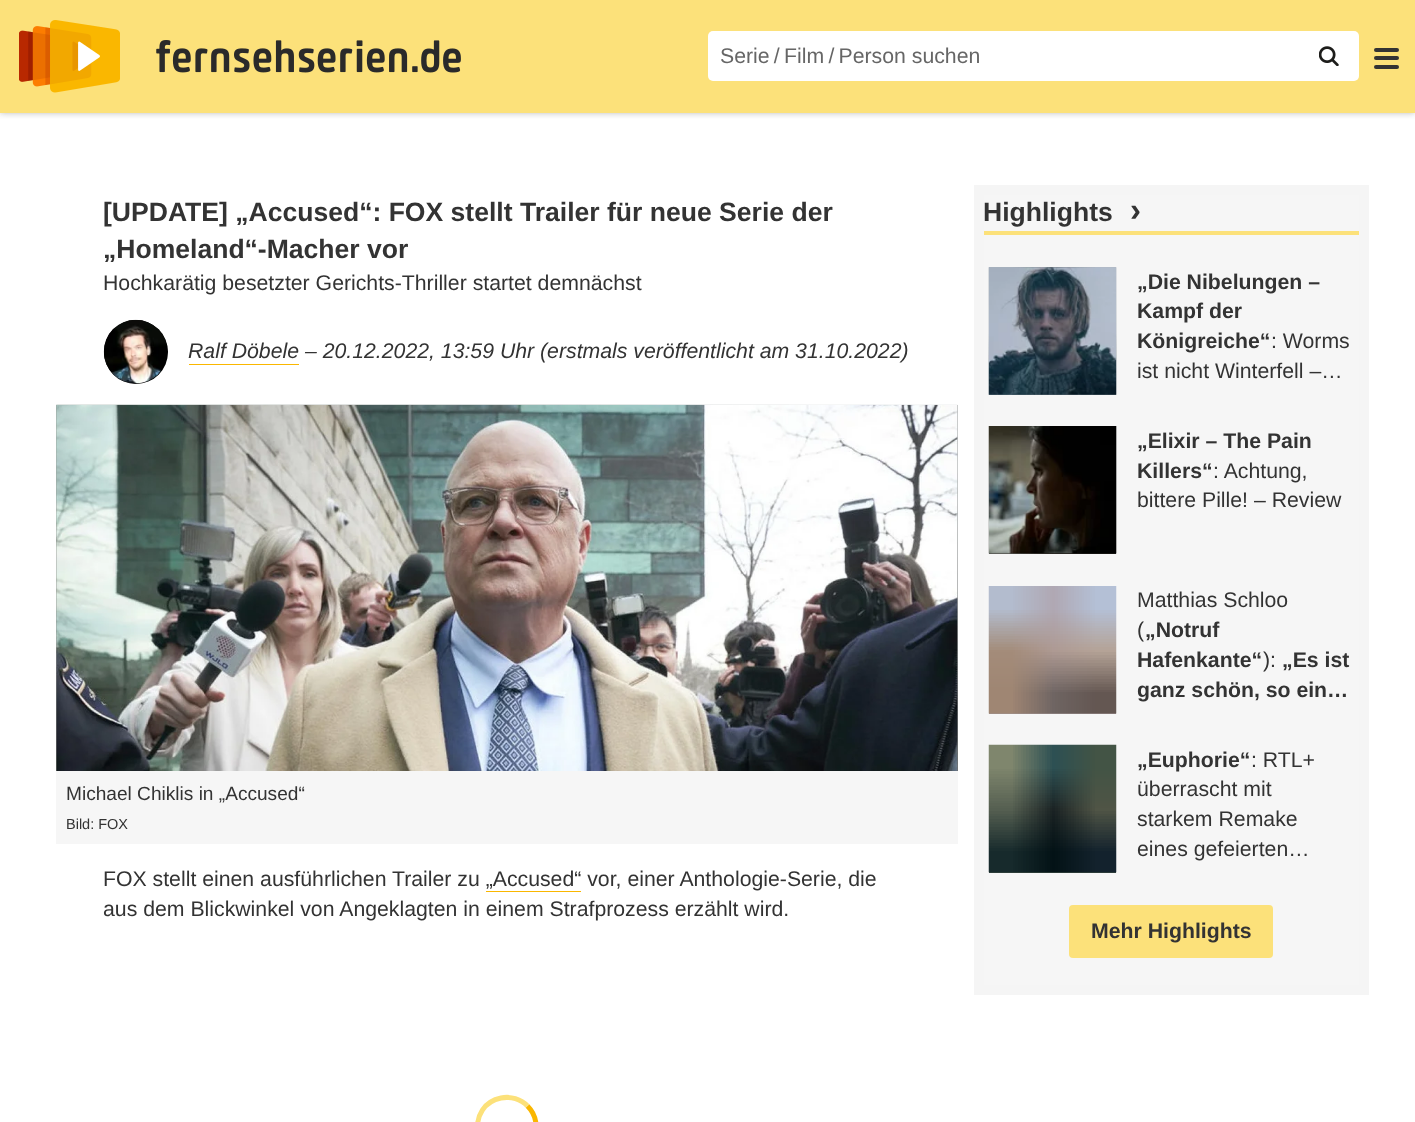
<svg xmlns="http://www.w3.org/2000/svg" width="1415" height="1122" viewBox="0 0 1415 1122">
  <defs>
    <clipPath id="clip1"><path d="M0 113h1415v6H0z"/></clipPath>
  </defs>
  <rect width="100%" height="100%" fill="#fff"/>
  <path d="M0 0h1415v113H0z" fill="#fce17a"/>
  <g clip-path="url(#clip1)">
    <path d="M0 100h1415v13H0z" fill="#33333354" filter="blur(3px)"/>
  </g>
  <image x="19" y="20" width="101" height="73" href="img/1.png"/>
  <image x="156" y="40" width="305" height="33" href="img/2.png"/>
  <rect x="1374" y="56" width="25" height="4" rx="2" fill="#333"/>
  <rect x="1374" y="48" width="25" height="4" rx="2" fill="#333"/>
  <rect x="1374" y="65" width="25" height="4" rx="2" fill="#333"/>
  <rect x="708" y="31" width="651" height="50" rx="5" fill="#fff"/>
  <image x="1319" y="46" width="20" height="20" href="img/3.png"/>
  <circle cx="136" cy="352" r="32" fill="#000"/>
  <image x="103" y="319" width="65" height="65" href="img/4.png"/>
  <path d="M189 364h110v1H189z" fill="#fab700"/>
  <path d="M56 771h902v73H56z" fill="#f6f6f6"/>
  <path d="M56 405h902v366H56z" fill="#969997"/>
  <image x="56" y="404" width="902" height="367" href="img/5.png"/>
  <image x="56" y="404" width="902" height="367" href="img/6.png"/>
  <path d="M486 891h95v1H486z" fill="#fab700"/>
  <path d="M527.5 1106C539 1117.5 539 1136.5 527.5 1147.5" fill="none" stroke="#fab700" stroke-width="5"/>
  <path d="M527.5 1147.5C522 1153 514.5 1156 507 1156C471.5 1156 466.5 1105 501 1098C510.5 1096 521 1099 527.5 1106" fill="none" stroke="#fce17a" stroke-width="5"/>
  <path d="M984 195h375v790H984z" fill="#f6f6f6"/>
  <rect x="1069" y="905" width="204" height="53" rx="4" fill="#fce17a"/>
  <path d="M979 190h385v800H979z" fill="none" stroke="#f5f5f5" stroke-width="10"/>
  <path d="M984 231h375v4H984z" fill="#fce17a"/>
  <image x="988" y="267" width="129" height="128" href="img/7.png"/>
  <image x="988" y="267" width="129" height="128" href="img/8.png"/>
  <path d="M989 553h127v1H989z" fill="#2d2b27"/>
  <image x="988" y="426" width="129" height="128" href="img/9.png"/>
  <image x="988" y="426" width="129" height="128" href="img/10.png"/>
  <path d="M989 713h127v1H989z" fill="#9e9392"/>
  <image x="988" y="586" width="129" height="128" href="img/11.png"/>
  <path d="M989 872h127v1H989z" fill="#35443e"/>
  <image x="988" y="744" width="129" height="129" href="img/12.png"/>
  <text x="720" y="63" font-family="Liberation Sans" font-size="21.25" fill="#666">Serie / Film / Person suchen</text>
  <g font-family="Liberation Sans" font-size="26.55" font-weight="bold" fill="#333">
    <text x="103" y="221">[UPDATE] „Accused“: FOX stellt Trailer für neue Serie der</text>
    <text x="103" y="258">„Homeland“-Macher vor</text>
  </g>
  <text x="103" y="290" font-family="Liberation Sans" font-size="21.25" fill="#333">Hochkarätig besetzter Gerichts-Thriller startet demnächst</text>
  <text x="188" y="358" font-family="Liberation Sans" font-size="21.25" font-style="italic" fill="#333">Ralf Döbele – 20.12.2022, 13:59 Uhr (erstmals veröffentlicht am 31.10.2022)</text>
  <text x="66" y="800" font-family="Liberation Sans" font-size="19.1" fill="#333">Michael Chiklis in „Accused“</text>
  <text x="66" y="829" font-family="Liberation Sans" font-size="14.5" fill="#333">Bild: FOX</text>
  <g font-family="Liberation Sans" font-size="21.25" fill="#333">
    <text x="103" y="886">FOX stellt einen ausführlichen Trailer zu „Accused“ vor, einer Anthologie-Serie, die</text>
    <text x="103" y="916">aus dem Blickwinkel von Angeklagten in einem Strafprozess erzählt wird.</text>
  </g>
  <text x="983" y="221" font-family="Liberation Sans" font-size="26.55" font-weight="bold" fill="#333">Highlights</text>
  <text x="1130" y="221" font-family="Liberation Sans" font-size="33" font-weight="bold" fill="#333">›</text>
  <g font-family="Liberation Sans" font-size="21.25" font-weight="bold" fill="#333">
    <text x="1137" y="289">„Die Nibelungen –</text>
    <text x="1137" y="318">Kampf der</text>
    <text x="1137" y="348">Königreiche“</text>
  </g>
  <g font-family="Liberation Sans" font-size="21.25" fill="#333">
    <text x="1271" y="348">: Worms</text>
    <text x="1137" y="378">ist nicht Winterfell –…</text>
  </g>
  <g font-family="Liberation Sans" font-size="21.25" font-weight="bold" fill="#333">
    <text x="1137" y="448">„Elixir – The Pain</text>
    <text x="1137" y="478">Killers“</text>
  </g>
  <g font-family="Liberation Sans" font-size="21.25" fill="#333">
    <text x="1213" y="478">: Achtung,</text>
    <text x="1137" y="507">bittere Pille! – Review</text>
    <text x="1137" y="607">Matthias Schloo</text>
    <text x="1137" y="637">(</text>
  </g>
  <g font-family="Liberation Sans" font-size="21.25" font-weight="bold" fill="#333">
    <text x="1145" y="637">„Notruf</text>
    <text x="1137" y="667">Hafenkante“</text>
  </g>
  <text x="1263" y="667" font-family="Liberation Sans" font-size="21.25" fill="#333">):</text>
  <g font-family="Liberation Sans" font-size="21.25" font-weight="bold" fill="#333">
    <text x="1282" y="667">„Es ist</text>
    <text x="1137" y="697">ganz schön, so ein…</text>
    <text x="1137" y="767">„Euphorie“</text>
  </g>
  <g font-family="Liberation Sans" font-size="21.25" fill="#333">
    <text x="1251" y="767">: RTL+</text>
    <text x="1137" y="796">überrascht mit</text>
    <text x="1137" y="826">starkem Remake</text>
    <text x="1137" y="856">eines gefeierten…</text>
  </g>
  <text x="1091" y="938" font-family="Liberation Sans" font-size="21.25" font-weight="bold" fill="#333">Mehr Highlights</text>
</svg>
